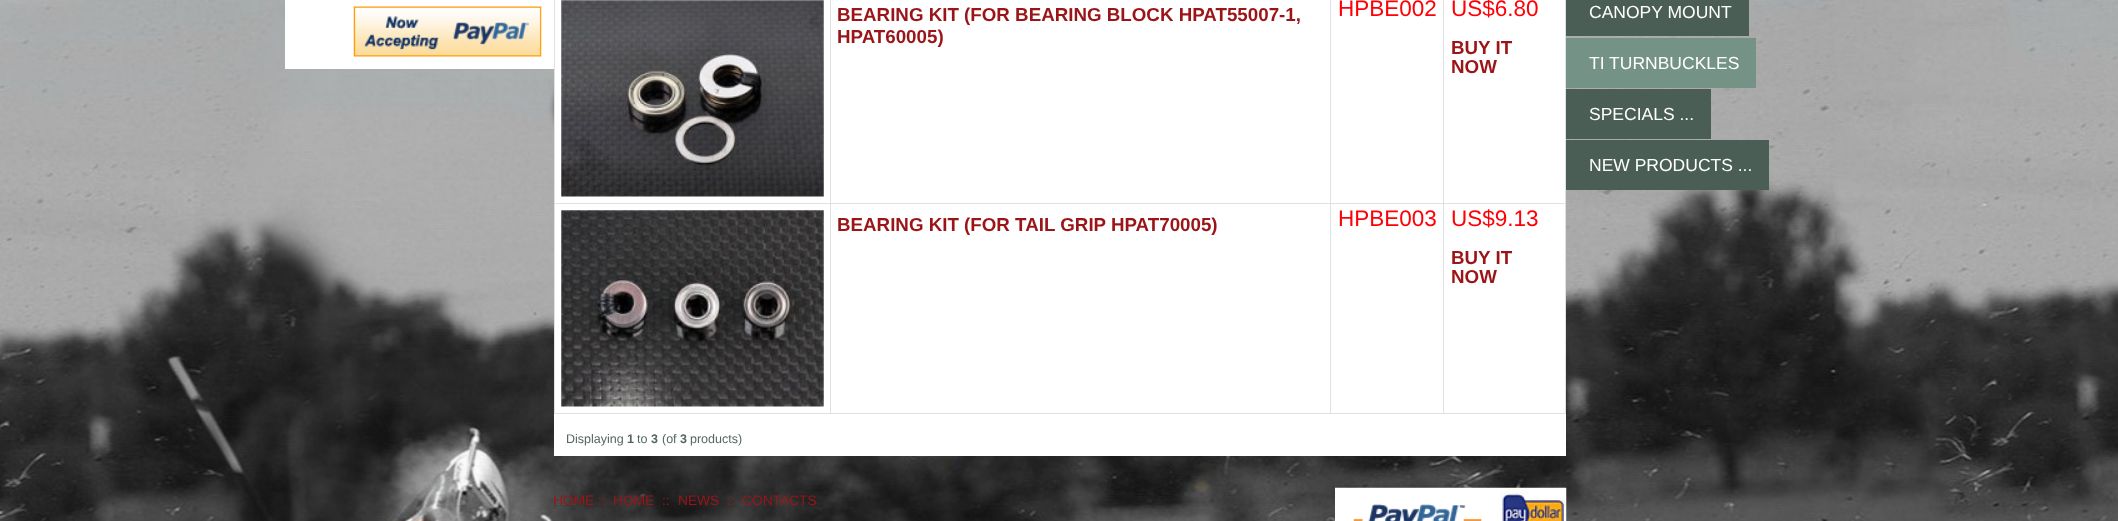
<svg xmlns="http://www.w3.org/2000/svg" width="2118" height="521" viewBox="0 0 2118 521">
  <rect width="100%" height="100%" fill="#fff"/>
  <image x="0" y="0" width="2118" height="521" href="img/1.png"/>
  <path d="M285 0h269v69H285z" fill="#fff"/>
  <image x="353" y="6" width="189" height="51" href="img/2.png"/>
  <path d="M554 0h1012v456H554z" fill="#fff"/>
  <path d="M554 0h1v414H554z" fill="#e1e1e1"/>
  <path d="M1565 0h1v414H1565z" fill="#e1e1e1"/>
  <path d="M1443 413h123v1H1443z" fill="#e1e1e1"/>
  <path d="M1443 203h1v211H1443z" fill="#e1e1e1"/>
  <path d="M1443 203h123v1H1443z" fill="#e1e1e1"/>
  <path d="M1443 0h1v204H1443z" fill="#e1e1e1"/>
  <path d="M1330 413h114v1H1330z" fill="#e1e1e1"/>
  <path d="M1330 203h1v211H1330z" fill="#e1e1e1"/>
  <path d="M1330 203h114v1H1330z" fill="#e1e1e1"/>
  <path d="M1330 0h1v204H1330z" fill="#e1e1e1"/>
  <path d="M830 413h501v1H830z" fill="#e1e1e1"/>
  <path d="M830 203h1v211H830z" fill="#e1e1e1"/>
  <path d="M830 203h501v1H830z" fill="#e1e1e1"/>
  <path d="M830 0h1v204H830z" fill="#e1e1e1"/>
  <path d="M554 203h277v1H554z" fill="#e1e1e1"/>
  <image x="561" y="0" width="263" height="197" href="img/3.png"/>
  <path d="M554 413h277v1H554z" fill="#e1e1e1"/>
  <image x="561" y="210" width="263" height="197" href="img/4.png"/>
  <path d="M1566 0h183v36H1566z" fill="#4b5e56"/>
  <path d="M1566 38h190v50H1566z" fill="#759287"/>
  <path d="M1566 89h145v50H1566z" fill="#4b5e56"/>
  <path d="M1566 140h203v50H1566z" fill="#4b5e56"/>
  <image x="1335" y="487" width="165" height="34" href="img/5.png"/>
  <image x="1500" y="487" width="67" height="34" href="img/6.png"/>
  <g font-family="Liberation Sans" font-size="18.75" font-weight="bold" fill="#9b1518">
    <text x="837" y="21">BEARING KIT (FOR BEARING BLOCK HPAT55007-1,</text>
    <text x="837" y="43">HPAT60005)</text>
  </g>
  <g font-family="Liberation Sans" font-size="22.5" fill="#ff0006">
    <text x="1338" y="16">HPBE002</text>
    <text x="1451" y="16">US$6.80</text>
  </g>
  <g font-family="Liberation Sans" font-size="18.75" font-weight="bold" fill="#9b1518">
    <text x="1451" y="54">BUY IT</text>
    <text x="1451" y="73">NOW</text>
    <text x="837" y="231">BEARING KIT (FOR TAIL GRIP HPAT70005)</text>
  </g>
  <g font-family="Liberation Sans" font-size="22.5" fill="#ff0006">
    <text x="1338" y="226">HPBE003</text>
    <text x="1451" y="226">US$9.13</text>
  </g>
  <g font-family="Liberation Sans" font-size="18.75" font-weight="bold" fill="#9b1518">
    <text x="1451" y="264">BUY IT</text>
    <text x="1451" y="283">NOW</text>
  </g>
  <text x="566" y="443" font-family="Liberation Sans" font-size="12.5" fill="#53675f">Displaying</text>
  <text x="627" y="443" font-family="Liberation Sans" font-size="12.5" font-weight="bold" fill="#53675f">1</text>
  <text x="637" y="443" font-family="Liberation Sans" font-size="12.5" fill="#53675f">to</text>
  <text x="651" y="443" font-family="Liberation Sans" font-size="12.5" font-weight="bold" fill="#53675f">3</text>
  <text x="662" y="443" font-family="Liberation Sans" font-size="12.5" fill="#53675f">(of</text>
  <text x="680" y="443" font-family="Liberation Sans" font-size="12.5" font-weight="bold" fill="#53675f">3</text>
  <text x="690" y="443" font-family="Liberation Sans" font-size="12.5" fill="#53675f">products)</text>
  <g font-family="Liberation Sans" font-size="17.5" fill="#fff">
    <text x="1589" y="18">CANOPY MOUNT</text>
    <text x="1589" y="69">TI TURNBUCKLES</text>
    <text x="1589" y="120">SPECIALS ...</text>
    <text x="1589" y="171">NEW PRODUCTS ...</text>
  </g>
  <g font-family="Liberation Sans" font-size="13.75" fill="#9b1518">
    <text x="553" y="505">HOME ::</text>
    <text x="613" y="505">HOME</text>
    <text x="662" y="505">::</text>
    <text x="678" y="505">NEWS</text>
    <text x="727" y="505">::</text>
    <text x="742" y="505">CONTACTS</text>
  </g>
</svg>
